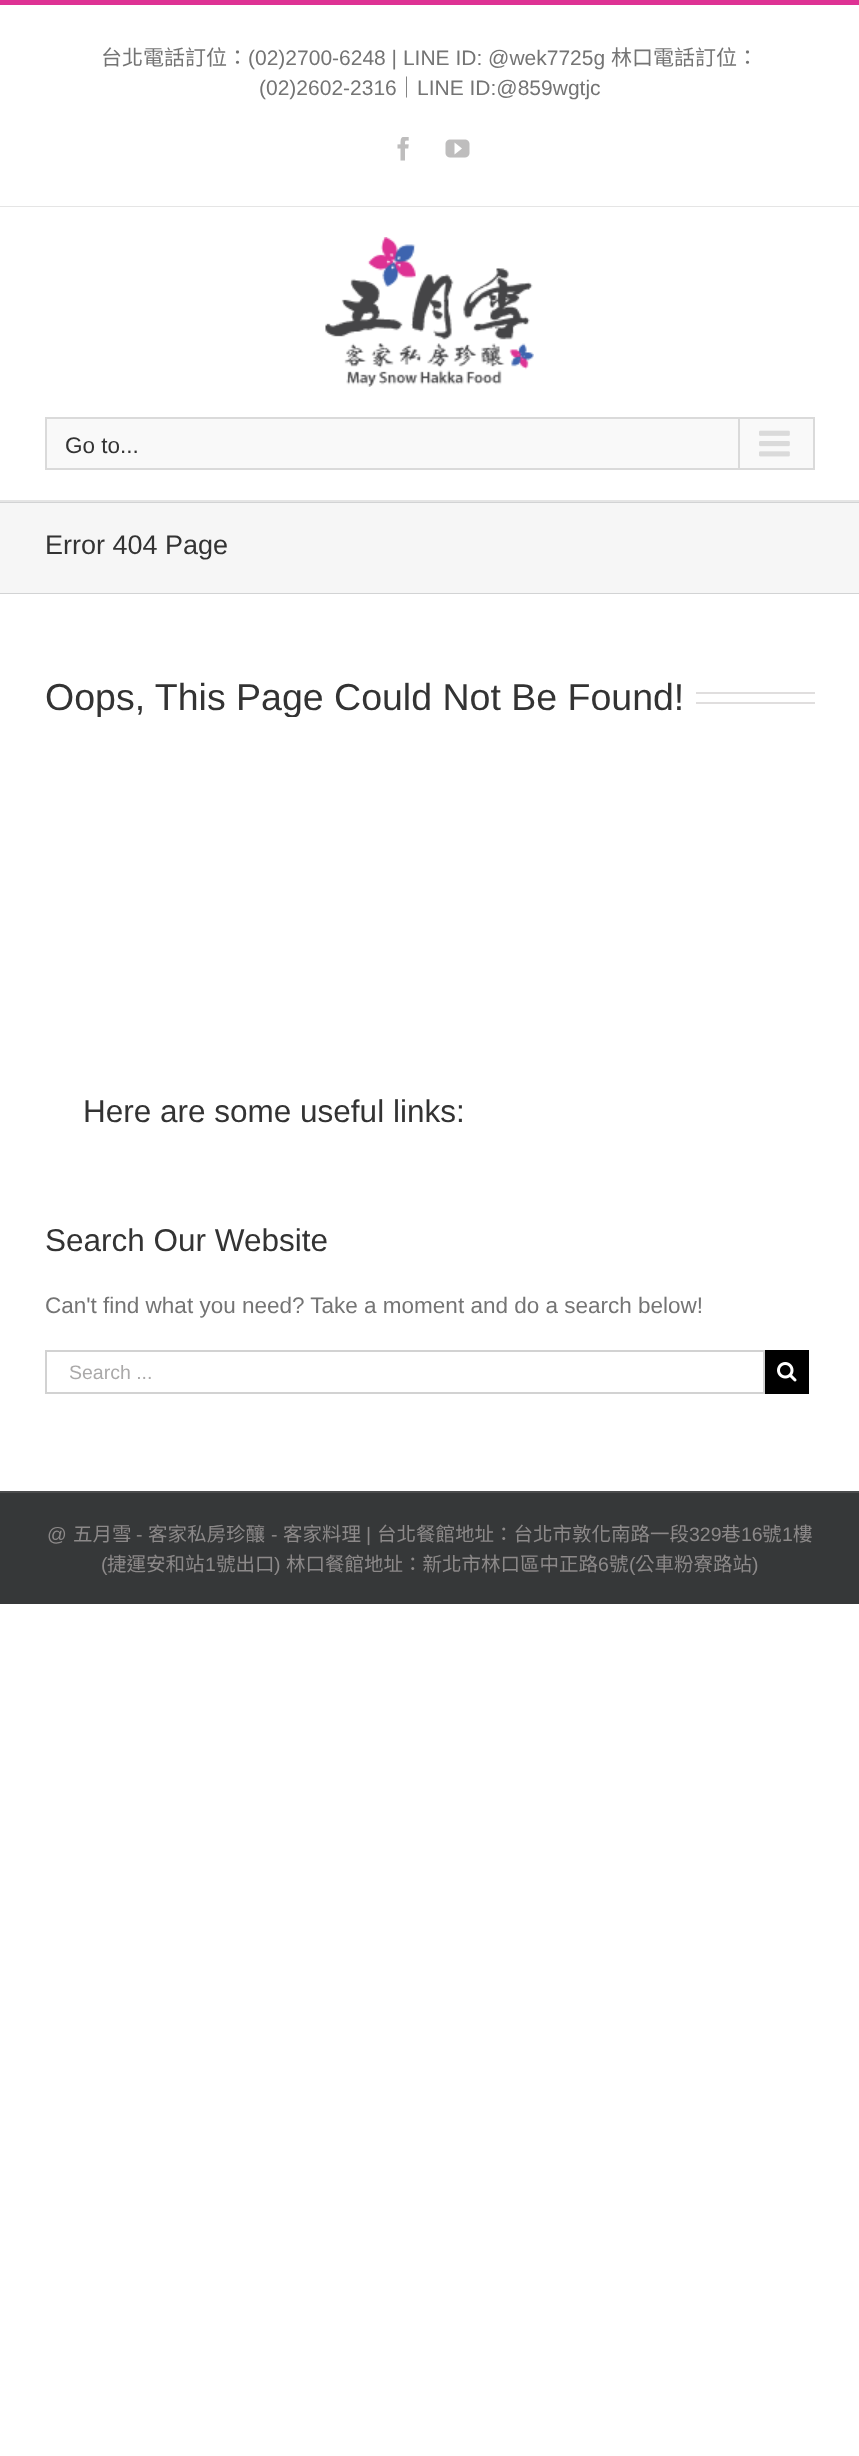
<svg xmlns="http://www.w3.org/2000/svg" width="859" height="2456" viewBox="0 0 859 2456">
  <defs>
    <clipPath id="clip1"><path d="M45 677h770v40H45z"/></clipPath>
  </defs>
  <rect width="100%" height="100%" fill="#fff"/>
  <path d="M0 0h859v5H0z" fill="#de3294"/>
  <path d="M0 206h859v1H0z" fill="#e5e5e5"/>
  <image x="397" y="137" width="12" height="24" href="img/1.png"/>
  <image x="445" y="139" width="25" height="19" href="img/2.png"/>
  <path d="M0 500h859v2H0z" fill="#e5e5e5"/>
  <image x="325" y="237" width="209" height="150" href="img/3.png"/>
  <path d="M46 418h768v51H46z" fill="#f9f9f9" stroke="#dadada" stroke-width="2"/>
  <path d="M738 419h2v49H738z" fill="#dadada"/>
  <image x="759" y="430" width="31" height="27" href="img/4.png"/>
  <path d="M0 503h859v90H0z" fill="#f6f6f6"/>
  <path d="M0 502h859v1H0z" fill="#d2d3d4"/>
  <path d="M0 593h859v1H0z" fill="#d2d3d4"/>
  <path d="M696 692h119v2H696z" fill="#e0dede"/>
  <path d="M696 702h119v2H696z" fill="#e0dede"/>
  <path d="M46 1351h718v42H46z" fill="none" stroke="#d2d2d2" stroke-width="2"/>
  <path d="M765 1350h44v44H765z" fill="#000"/>
  <image x="777" y="1362" width="20" height="20" href="img/5.png"/>
  <path d="M0 1493h859v111H0z" fill="#363839"/>
  <path d="M0 1491h859v2H0z" fill="#4b4c4d"/>
  <text x="101" y="65" font-family="Noto Sans CJK TC" font-size="21" fill="#747474">台北電話訂位：</text>
  <text x="248" y="65" font-family="Liberation Sans" font-size="21" fill="#747474">(02)2700-6248 | LINE ID: @wek7725g</text>
  <text x="611" y="65" font-family="Noto Sans CJK TC" font-size="21" fill="#747474">林口電話訂位：</text>
  <text x="259" y="95" font-family="Liberation Sans" font-size="21" fill="#747474">(02)2602-2316</text>
  <text x="396" y="95" font-family="Noto Sans CJK TC" font-size="21" fill="#747474">｜</text>
  <text x="417" y="95" font-family="Liberation Sans" font-size="21" fill="#747474">LINE ID:@859wgtjc</text>
  <text x="65" y="453" font-family="Liberation Sans" font-size="22.5" fill="#333">Go to...</text>
  <text x="45" y="554" font-family="Liberation Sans" font-size="27" fill="#333">Error 404 Page</text>
  <g clip-path="url(#clip1)">
    <text x="45" y="710" font-family="Liberation Sans" font-size="37.5" fill="#333">Oops, This Page Could Not Be Found!</text>
  </g>
  <g font-family="Liberation Sans" font-size="31.5" fill="#333">
    <text x="83" y="1122">Here are some useful links:</text>
    <text x="45" y="1251">Search Our Website</text>
  </g>
  <text x="45" y="1313" font-family="Liberation Sans" font-size="22.5" fill="#747474">Can't find what you need? Take a moment and do a search below!</text>
  <text x="69" y="1379" font-family="Liberation Sans" font-size="19.5" fill="#aaa9a9">Search ...</text>
  <text x="47" y="1541" font-family="Liberation Sans" font-size="19.5" fill="#8c8989">@</text>
  <text x="73" y="1541" font-family="Noto Sans CJK TC" font-size="19.5" fill="#8c8989">五月雪</text>
  <text x="136" y="1541" font-family="Liberation Sans" font-size="19.5" fill="#8c8989">-</text>
  <text x="148" y="1541" font-family="Noto Sans CJK TC" font-size="19.5" fill="#8c8989">客家私房珍釀</text>
  <text x="271" y="1541" font-family="Liberation Sans" font-size="19.5" fill="#8c8989">-</text>
  <text x="283" y="1541" font-family="Noto Sans CJK TC" font-size="19.5" fill="#8c8989">客家料理</text>
  <text x="366" y="1541" font-family="Liberation Sans" font-size="19.5" fill="#8c8989">|</text>
  <text x="377" y="1541" font-family="Noto Sans CJK TC" font-size="19.5" fill="#8c8989">台北餐館地址：台北市敦化南路一段</text>
  <text x="689" y="1541" font-family="Liberation Sans" font-size="19.5" fill="#8c8989">329</text>
  <text x="721" y="1541" font-family="Noto Sans CJK TC" font-size="19.5" fill="#8c8989">巷</text>
  <text x="741" y="1541" font-family="Liberation Sans" font-size="19.5" fill="#8c8989">16</text>
  <text x="762" y="1541" font-family="Noto Sans CJK TC" font-size="19.5" fill="#8c8989">號</text>
  <text x="782" y="1541" font-family="Liberation Sans" font-size="19.5" fill="#8c8989">1</text>
  <text x="793" y="1541" font-family="Noto Sans CJK TC" font-size="19.5" fill="#8c8989">樓</text>
  <text x="101" y="1571" font-family="Liberation Sans" font-size="19.5" fill="#8c8989">(</text>
  <text x="107" y="1571" font-family="Noto Sans CJK TC" font-size="19.5" fill="#8c8989">捷運安和站</text>
  <text x="205" y="1571" font-family="Liberation Sans" font-size="19.5" fill="#8c8989">1</text>
  <text x="216" y="1571" font-family="Noto Sans CJK TC" font-size="19.5" fill="#8c8989">號出口</text>
  <text x="274" y="1571" font-family="Liberation Sans" font-size="19.5" fill="#8c8989">)</text>
  <text x="286" y="1571" font-family="Noto Sans CJK TC" font-size="19.5" fill="#8c8989">林口餐館地址：新北市林口區中正路</text>
  <text x="598" y="1571" font-family="Liberation Sans" font-size="19.5" fill="#8c8989">6</text>
  <text x="609" y="1571" font-family="Noto Sans CJK TC" font-size="19.5" fill="#8c8989">號</text>
  <text x="629" y="1571" font-family="Liberation Sans" font-size="19.5" fill="#8c8989">(</text>
  <text x="635" y="1571" font-family="Noto Sans CJK TC" font-size="19.5" fill="#8c8989">公車粉寮路站</text>
  <text x="752" y="1571" font-family="Liberation Sans" font-size="19.5" fill="#8c8989">)</text>
</svg>
